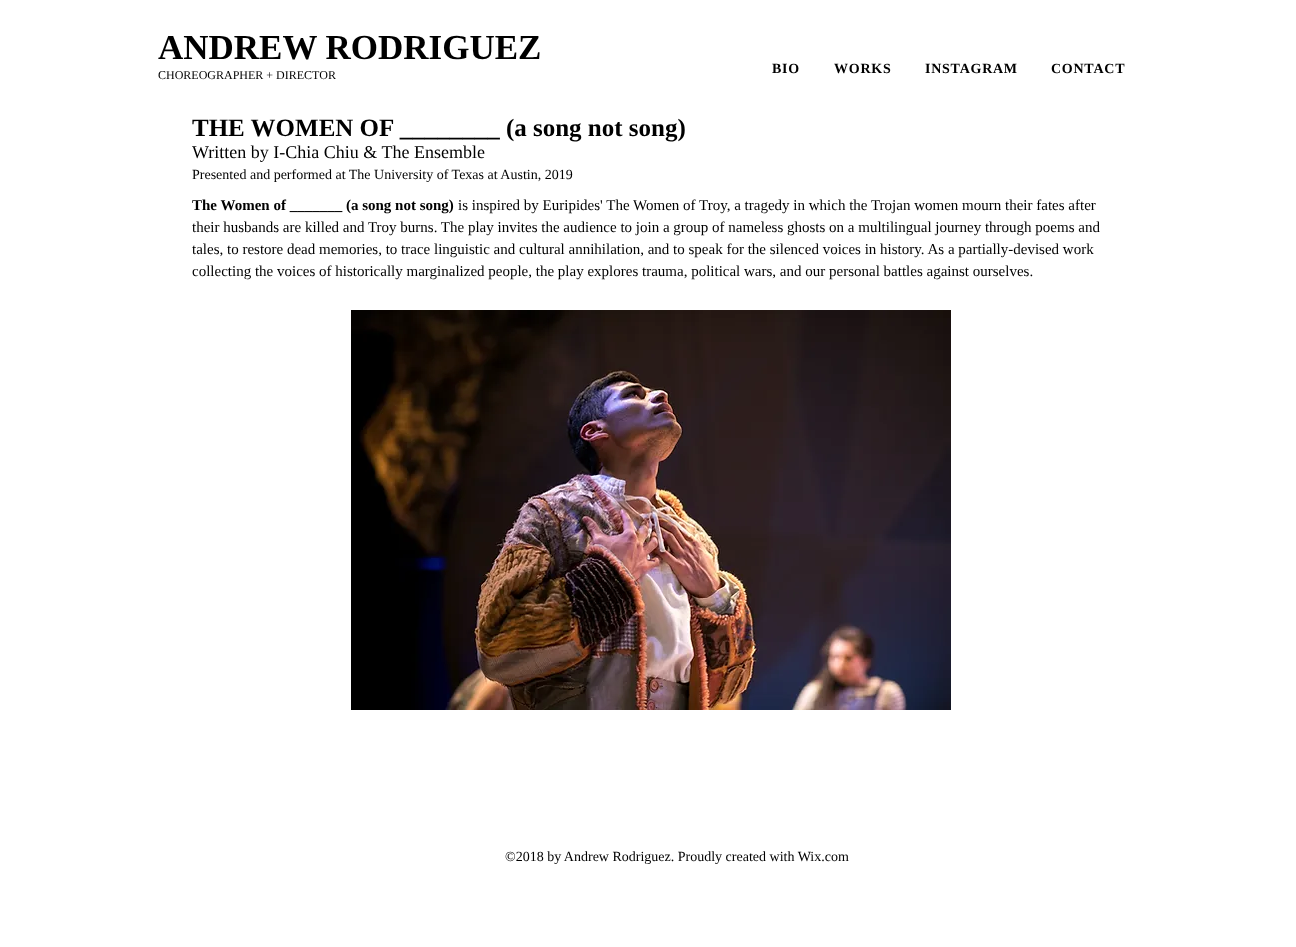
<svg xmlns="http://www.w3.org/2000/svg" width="1296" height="947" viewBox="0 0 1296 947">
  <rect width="100%" height="100%" fill="#fff"/>
  <image x="351" y="310" width="600" height="400" href="img/1.png"/>
  <text x="158" y="59" font-family="Liberation Serif" font-size="35" font-weight="bold" fill="#000">ANDREW RODRIGUEZ</text>
  <g font-family="Liberation Serif" font-size="14" font-weight="bold" letter-spacing="0.75" fill="#000">
    <text x="772" y="73">BIO</text>
    <text x="834" y="73">WORKS</text>
    <text x="925" y="73">INSTAGRAM</text>
    <text x="1051" y="73">CONTACT</text>
  </g>
  <text x="158" y="79" font-family="Liberation Serif" font-size="12" fill="#000">CHOREOGRAPHER + DIRECTOR</text>
  <text x="192" y="136" font-family="Liberation Serif" font-size="25" font-weight="bold" fill="#000">THE WOMEN OF ________ (a song not song)</text>
  <text x="192" y="158" font-family="Liberation Serif" font-size="18" fill="#000">Written by I-Chia Chiu &amp; The Ensemble</text>
  <text x="192" y="179" font-family="Liberation Serif" font-size="14" fill="#000">Presented and performed at The University of Texas at Austin, 2019</text>
  <text x="192" y="210" font-family="Liberation Serif" font-size="15" font-weight="bold" fill="#000">The Women of _______ (a song not song)</text>
  <g font-family="Liberation Serif" font-size="15" fill="#000">
    <text x="458" y="210">is inspired by Euripides' The Women of Troy, a tragedy in which the Trojan women mourn their fates after</text>
    <text x="192" y="232">their husbands are killed and Troy burns. The play invites the audience to join a group of nameless ghosts on a multilingual journey through poems and</text>
    <text x="192" y="254">tales, to restore dead memories, to trace linguistic and cultural annihilation, and to speak for the silenced voices in history. As a partially-devised work</text>
    <text x="192" y="276">collecting the voices of historically marginalized people, the play explores trauma, political wars, and our personal battles against ourselves.</text>
  </g>
  <text x="505" y="861" font-family="Liberation Serif" font-size="14" fill="#000">©2018 by Andrew Rodriguez. Proudly created with Wix.com</text>
</svg>
